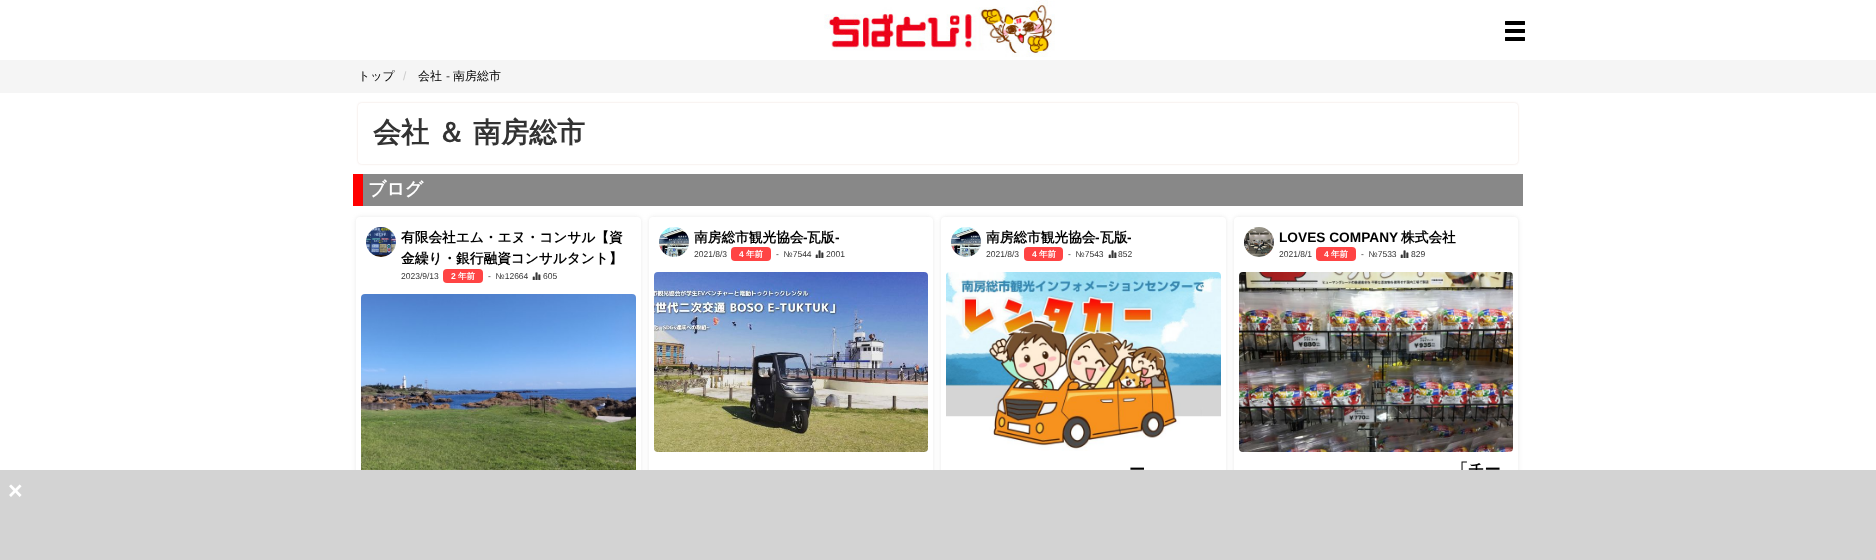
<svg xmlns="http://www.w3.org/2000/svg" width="1876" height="560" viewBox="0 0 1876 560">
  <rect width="100%" height="100%" fill="#fff"/>
  <image x="824" y="0" width="231" height="57" href="img/1.png"/>
  <image x="1505" y="21" width="20" height="20" href="img/2.png"/>
  <path d="M0 60h1876v33H0z" fill="#f5f5f5"/>
  <rect x="358" y="103" width="1160" height="61" rx="4" fill="#c499854d" filter="blur(1px)"/>
  <rect x="358" y="103" width="1160" height="61" rx="4" fill="#fff"/>
  <path d="M363 174h1160v32H363z" fill="#888"/>
  <path d="M353 174h10v32H353z" fill="#f00"/>
  <rect x="356" y="217" width="285" height="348" rx="4" fill="#8c8c8c33" filter="blur(2px)"/>
  <rect x="356" y="217" width="285" height="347" rx="4" fill="#fff"/>
  <image x="366" y="227" width="30" height="30" href="img/3.png"/>
  <rect x="443" y="269" width="40" height="14" rx="4" fill="#f44"/>
  <image x="532" y="272" width="9" height="8" href="img/4.png"/>
  <image x="361" y="294" width="275" height="176" href="img/5.png"/>
  <rect x="649" y="217" width="284" height="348" rx="4" fill="#8c8c8c33" filter="blur(2px)"/>
  <rect x="649" y="217" width="284" height="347" rx="4" fill="#fff"/>
  <image x="659" y="227" width="30" height="30" href="img/6.png"/>
  <rect x="731" y="247" width="40" height="14" rx="4" fill="#f44"/>
  <image x="815" y="250" width="9" height="8" href="img/4.png"/>
  <image x="654" y="272" width="274" height="180" href="img/7.png"/>
  <rect x="941" y="217" width="285" height="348" rx="4" fill="#8c8c8c33" filter="blur(2px)"/>
  <rect x="941" y="217" width="285" height="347" rx="4" fill="#fff"/>
  <image x="951" y="227" width="30" height="30" href="img/8.png"/>
  <rect x="1024" y="247" width="39" height="14" rx="4" fill="#f44"/>
  <image x="1108" y="250" width="9" height="8" href="img/4.png"/>
  <image x="946" y="272" width="275" height="179" href="img/9.png"/>
  <rect x="1234" y="217" width="284" height="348" rx="4" fill="#8c8c8c33" filter="blur(2px)"/>
  <rect x="1234" y="217" width="284" height="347" rx="4" fill="#fff"/>
  <image x="1244" y="227" width="30" height="30" href="img/10.png"/>
  <rect x="1316" y="247" width="40" height="14" rx="4" fill="#f44"/>
  <image x="1400" y="250" width="9" height="8" href="img/4.png"/>
  <image x="1239" y="272" width="274" height="180" href="img/11.png"/>
  <text x="358" y="80" font-family="WenQuanYi Zen Hei" font-size="12" font-weight="500" fill="#000">トップ</text>
  <text x="403" y="80" font-family="Liberation Sans" font-size="12" fill="#ccc">/</text>
  <text x="418" y="80" font-family="WenQuanYi Zen Hei" font-size="12" font-weight="500" fill="#000">会社</text>
  <text x="446" y="80" font-family="Liberation Sans" font-size="12" fill="#333">-</text>
  <text x="453" y="80" font-family="WenQuanYi Zen Hei" font-size="12" font-weight="500" fill="#000">南房総市</text>
  <g font-family="WenQuanYi Zen Hei" font-size="28" font-weight="bold" fill="#333">
    <text x="373" y="142">会社</text>
    <text x="437" y="142">＆</text>
    <text x="473" y="142">南房総市</text>
  </g>
  <text x="368" y="195" font-family="WenQuanYi Zen Hei" font-size="18" font-weight="bold" fill="#fff">ブログ</text>
  <g font-family="WenQuanYi Zen Hei" font-size="13.7" font-weight="bold" fill="#000">
    <text x="401" y="242">有限会社エム・エヌ・コンサル【資</text>
    <text x="401" y="263">金繰り・銀行融資コンサルタント】</text>
  </g>
  <text x="401" y="279" font-family="Liberation Sans" font-size="8.5" fill="#333">2023/9/13</text>
  <text x="451" y="279" font-family="Liberation Sans" font-size="8.5" font-weight="bold" fill="#fff">2</text>
  <text x="458" y="279" font-family="WenQuanYi Zen Hei" font-size="8.5" font-weight="bold" fill="#fff">年前</text>
  <g font-family="Liberation Sans" font-size="8.5" fill="#333">
    <text x="488" y="279" xml:space="preserve">-  №12664</text>
    <text x="543" y="279">605</text>
  </g>
  <text x="694" y="242" font-family="WenQuanYi Zen Hei" font-size="13.7" font-weight="bold" fill="#000">南房総市観光協会</text>
  <text x="803" y="242" font-family="Liberation Sans" font-size="13.7" font-weight="bold" fill="#000">-</text>
  <text x="807" y="242" font-family="WenQuanYi Zen Hei" font-size="13.7" font-weight="bold" fill="#000">瓦版</text>
  <text x="835" y="242" font-family="Liberation Sans" font-size="13.7" font-weight="bold" fill="#000">-</text>
  <text x="694" y="257" font-family="Liberation Sans" font-size="8.5" fill="#333">2021/8/3</text>
  <text x="739" y="257" font-family="Liberation Sans" font-size="8.5" font-weight="bold" fill="#fff">4</text>
  <text x="746" y="257" font-family="WenQuanYi Zen Hei" font-size="8.5" font-weight="bold" fill="#fff">年前</text>
  <g font-family="Liberation Sans" font-size="8.5" fill="#333">
    <text x="776" y="257" xml:space="preserve">-  №7544</text>
    <text x="826" y="257">2001</text>
  </g>
  <text x="986" y="242" font-family="WenQuanYi Zen Hei" font-size="13.7" font-weight="bold" fill="#000">南房総市観光協会</text>
  <text x="1095" y="242" font-family="Liberation Sans" font-size="13.7" font-weight="bold" fill="#000">-</text>
  <text x="1100" y="242" font-family="WenQuanYi Zen Hei" font-size="13.7" font-weight="bold" fill="#000">瓦版</text>
  <text x="1127" y="242" font-family="Liberation Sans" font-size="13.7" font-weight="bold" fill="#000">-</text>
  <text x="986" y="257" font-family="Liberation Sans" font-size="8.5" fill="#333">2021/8/3</text>
  <text x="1032" y="257" font-family="Liberation Sans" font-size="8.5" font-weight="bold" fill="#fff">4</text>
  <text x="1039" y="257" font-family="WenQuanYi Zen Hei" font-size="8.5" font-weight="bold" fill="#fff">年前</text>
  <g font-family="Liberation Sans" font-size="8.5" fill="#333">
    <text x="1068" y="257" xml:space="preserve">-  №7543</text>
    <text x="1118" y="257">852</text>
  </g>
  <text x="1129" y="475" font-family="WenQuanYi Zen Hei" font-size="16" font-weight="bold" fill="#000">ー</text>
  <text x="1279" y="242" font-family="Liberation Sans" font-size="13.7" font-weight="bold" fill="#000">LOVES COMPANY</text>
  <text x="1401" y="242" font-family="WenQuanYi Zen Hei" font-size="13.7" font-weight="bold" fill="#000">株式会社</text>
  <text x="1279" y="257" font-family="Liberation Sans" font-size="8.5" fill="#333">2021/8/1</text>
  <text x="1324" y="257" font-family="Liberation Sans" font-size="8.5" font-weight="bold" fill="#fff">4</text>
  <text x="1331" y="257" font-family="WenQuanYi Zen Hei" font-size="8.5" font-weight="bold" fill="#fff">年前</text>
  <g font-family="Liberation Sans" font-size="8.5" fill="#333">
    <text x="1361" y="257" xml:space="preserve">-  №7533</text>
    <text x="1411" y="257">829</text>
  </g>
  <text x="1452" y="475" font-family="WenQuanYi Zen Hei" font-size="16" font-weight="bold" fill="#000">「チー</text>
  <path d="M0 470h1876v90H0z" fill="#d3d3d3"/>
  <text x="8" y="499" font-family="Liberation Sans" font-size="25" font-weight="bold" fill="#fff">×</text>
</svg>
